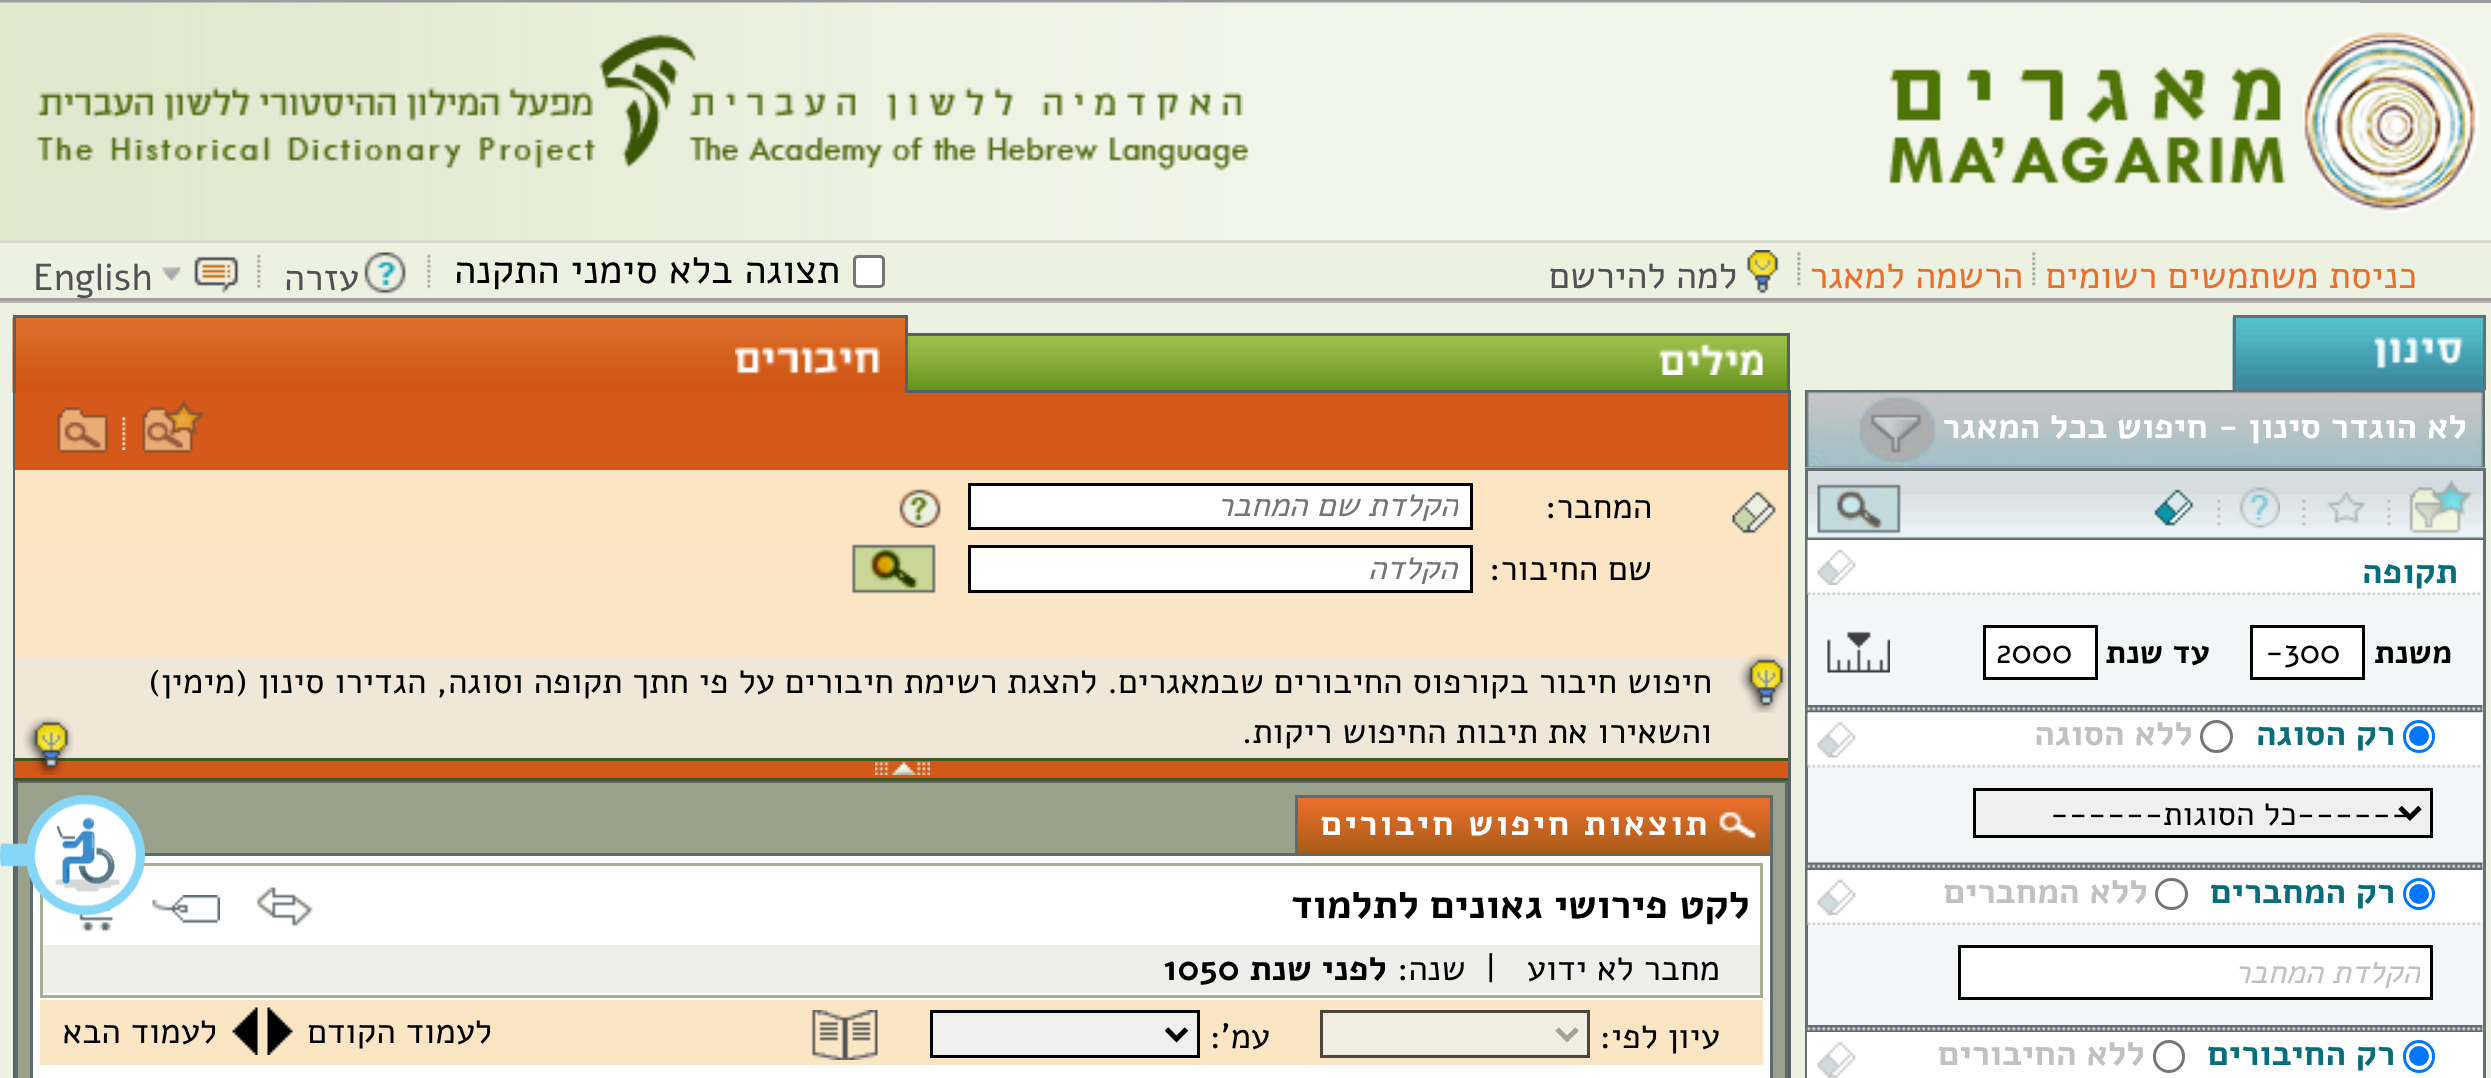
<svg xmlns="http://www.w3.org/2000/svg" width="2491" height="1078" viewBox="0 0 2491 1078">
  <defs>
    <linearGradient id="g1" gradientUnits="userSpaceOnUse" x1="15" y1="470" x2="15" y2="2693"><stop offset="0" stop-color="#fce5c3"/><stop offset="1" stop-color="#e5e8df"/></linearGradient>
    <linearGradient id="g2" gradientUnits="userSpaceOnUse" x1="1298" y1="798" x2="1298" y2="853"><stop offset="0" stop-color="#ec6f2c"/><stop offset="1" stop-color="#a95c18"/></linearGradient>
    <clipPath id="clip1"><path d="M1960 950h460v45H1960z"/></clipPath>
    <clipPath id="clip2"><path d="M970 485h488v43H970z"/></clipPath>
    <clipPath id="clip3"><path d="M970 548h488v42H970z"/></clipPath>
  </defs>
  <rect width="100%" height="100%" fill="#edf1e2"/>
  <path d="M0 0h2491v3H0z" fill="#9f9e9f"/>
  <path d="M0 301h2491v2H0z" fill="#bbb5ac"/>
  <path d="M2360 3h131v237H2360z" fill="#f2f5ea"/>
  <image x="0" y="2" width="2360" height="238" href="img/1.png"/>
  <image x="1889" y="32" width="592" height="181" href="img/2.png"/>
  <image x="36" y="34" width="1213" height="137" href="img/3.png"/>
  <path d="M0 240h2491v3H0z" fill="#d9dacf"/>
  <path d="M0 298h2491v3H0z" fill="#9f9e9f"/>
  <image x="2032" y="251" width="4" height="35" href="img/4.png"/>
  <image x="1797" y="251" width="4" height="35" href="img/4.png"/>
  <image x="1746" y="250" width="33" height="44" href="img/5.png"/>
  <rect x="854.5" y="256.5" width="29" height="30" rx="3.5" fill="#fff" stroke="#767676" stroke-width="3"/>
  <image x="426" y="254" width="5" height="35" href="img/6.png"/>
  <image x="364" y="252" width="42" height="42" href="img/7.png"/>
  <image x="256" y="254" width="5" height="35" href="img/8.png"/>
  <image x="162" y="256" width="77" height="38" href="img/9.png"/>
  <image x="2232" y="317" width="251" height="73" href="img/10.png"/>
  <path d="M2233 315h252v3H2233z" fill="#637174"/>
  <path d="M2483 315h3v75H2483z" fill="#637174"/>
  <path d="M2233 315h3v75H2233z" fill="#637174"/>
  <image x="2372" y="336" width="92" height="33" href="img/11.png"/>
  <image x="1805" y="390" width="680" height="78" href="img/12.png"/>
  <path d="M1808 471h675v24H1808z" fill="#d5dde0"/>
  <image x="1808" y="495" width="675" height="45" href="img/13.png"/>
  <path d="M1805 468h680v3H1805z" fill="#637174"/>
  <path d="M2483 468h3v610H2483z" fill="#637174"/>
  <path d="M1805 468h3v610H1805z" fill="#637174"/>
  <image x="2387" y="499" width="4" height="27" href="img/14.png"/>
  <image x="2409" y="480" width="64" height="54" href="img/15.png"/>
  <image x="2302" y="499" width="4" height="27" href="img/16.png"/>
  <image x="2327" y="491" width="38" height="33" href="img/17.png"/>
  <image x="2217" y="499" width="4" height="27" href="img/14.png"/>
  <image x="2239" y="487" width="41" height="42" href="img/18.png"/>
  <image x="2154" y="488" width="41" height="38" href="img/19.png"/>
  <image x="1817" y="484" width="84" height="50" href="img/20.png"/>
  <path d="M1808 540h675v492H1808z" fill="#f2f6f7"/>
  <image x="1807" y="540" width="676" height="55" href="img/21.png"/>
  <image x="1807" y="705" width="676" height="8" href="img/22.png"/>
  <image x="1817" y="549" width="39" height="36" href="img/23.png"/>
  <path d="M2251.5 626.5h112v52H2251.5z" fill="#fff" stroke="#000" stroke-width="3"/>
  <path d="M1984.5 626.5h112v52H1984.5z" fill="#fff" stroke="#000" stroke-width="3"/>
  <image x="1827" y="631" width="63" height="42" href="img/24.png"/>
  <image x="1807" y="712" width="676" height="56" href="img/25.png"/>
  <image x="1807" y="862" width="676" height="8" href="img/26.png"/>
  <rect x="2404.5" y="721.5" width="29" height="30" rx="14.5" fill="none" stroke="#0075ff" stroke-width="3"/>
  <circle cx="2419" cy="736" r="10" fill="#0075ff"/>
  <circle cx="2216.5" cy="736.5" r="15" fill="none" stroke="#767676" stroke-width="3"/>
  <image x="1817" y="721" width="39" height="37" href="img/27.png"/>
  <path d="M1974.5 789.5h457v47H1974.5z" fill="#efefef" stroke="#000" stroke-width="3"/>
  <path d="M2400 807.5L2410 817.5L2420 807.5" fill="none" stroke="#000" stroke-width="5"/>
  <image x="1807" y="870" width="676" height="55" href="img/21.png"/>
  <image x="1807" y="1025" width="676" height="7" href="img/28.png"/>
  <circle cx="2419" cy="894" r="14.5" fill="none" stroke="#0075ff" stroke-width="3"/>
  <circle cx="2419" cy="894" r="10" fill="#0075ff"/>
  <rect x="2156.5" y="879.5" width="30" height="29" rx="14.5" fill="none" stroke="#767676" stroke-width="3"/>
  <image x="1817" y="879" width="39" height="36" href="img/23.png"/>
  <path d="M1959.5 946.5h472v52H1959.5z" fill="#fff" stroke="#000" stroke-width="3"/>
  <path d="M1807 1032h676v46H1807z" fill="#fff"/>
  <rect x="2404.5" y="1041.5" width="29" height="30" rx="14.5" fill="none" stroke="#0075ff" stroke-width="3"/>
  <circle cx="2419" cy="1056" r="10" fill="#0075ff"/>
  <rect x="2154.5" y="1041.5" width="29" height="30" rx="14.5" fill="none" stroke="#767676" stroke-width="3"/>
  <image x="1817" y="1041" width="39" height="37" href="img/27.png"/>
  <image x="908" y="336" width="879" height="54" href="img/29.png"/>
  <path d="M1788 390h3v688H1788z" fill="#566165"/>
  <path d="M899.5 334.5h889v57H899.5z" fill="none" stroke="#566165" stroke-width="3"/>
  <image x="1657" y="342" width="106" height="33" href="img/30.png"/>
  <path d="M16 392h889v1H16z" fill="#d55919"/>
  <path d="M13 390h2v688H13z" fill="#566165"/>
  <image x="12" y="317" width="893" height="76" href="img/31.png"/>
  <path d="M13 315h895v3H13z" fill="#566165"/>
  <path d="M905 315h3v78H905z" fill="#566165"/>
  <path d="M13 315h3v78H13z" fill="#566165"/>
  <image x="735" y="347" width="145" height="28" href="img/32.png"/>
  <path d="M15 393h1773v77H15z" fill="#d55919"/>
  <image x="122" y="416" width="4" height="34" href="img/33.png"/>
  <image x="141" y="400" width="64" height="54" href="img/34.png"/>
  <image x="57" y="407" width="52" height="47" href="img/35.png"/>
  <path d="M15 470h1773v188H15z" fill="url(#g1)"/>
  <image x="1732" y="491" width="44" height="43" href="img/36.png"/>
  <path d="M969.5 484.5h502v44H969.5z" fill="#fff" stroke="#000" stroke-width="3"/>
  <image x="899" y="489" width="42" height="39" href="img/37.png"/>
  <path d="M969.5 546.5h502v45H969.5z" fill="#fff" stroke="#000" stroke-width="3"/>
  <image x="851" y="544" width="85" height="50" href="img/38.png"/>
  <path d="M15 761h1773v17H15z" fill="#d55919"/>
  <path d="M16.5 781.5h1770v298H16.5z" fill="#99a18c" stroke="#5d6b6e" stroke-width="3"/>
  <path d="M15 778h1773v3H15z" fill="#445626"/>
  <path d="M15 658h1773v100H15z" fill="#f0e7d8"/>
  <path d="M15 758h1773v3H15z" fill="#445626"/>
  <image x="1738" y="653" width="50" height="60" href="img/39.png"/>
  <image x="23" y="716" width="51" height="59" href="img/40.png"/>
  <image x="875" y="761" width="55" height="14" href="img/41.png"/>
  <path d="M1295 795h478v3H1295z" fill="#5d6b6e"/>
  <path d="M1770 795h3v58H1770z" fill="#5d6b6e"/>
  <path d="M1295 795h3v58H1295z" fill="#5d6b6e"/>
  <path d="M1298 798h472v55H1298z" fill="url(#g2)"/>
  <image x="1719" y="811" width="37" height="28" href="img/42.png"/>
  <path d="M31.5 854.5h1740v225H31.5z" fill="#fff" stroke="#5d6b6e" stroke-width="3"/>
  <path d="M41.5 864.5h1720v132H41.5z" fill="none" stroke="#a6ae96" stroke-width="3"/>
  <image x="256" y="887" width="57" height="41" href="img/43.png"/>
  <image x="152" y="895" width="68" height="29" href="img/44.png"/>
  <image x="79" y="908" width="34" height="25" href="img/45.png"/>
  <path d="M43 945h1717v48H43z" fill="#eeeeec"/>
  <path d="M40 1000h1723v65H40z" fill="#fae6c5"/>
  <path d="M1321.5 1011.5h267v45H1321.5z" fill="#f2ece2" stroke="#4b453b" stroke-width="3"/>
  <path d="M1557 1029L1567 1039L1577 1029" fill="none" stroke="#a59f95" stroke-width="5"/>
  <path d="M931.5 1011.5h267v45H931.5z" fill="#efefef" stroke="#000" stroke-width="3"/>
  <path d="M1166.5 1029L1176.5 1039L1186.5 1029" fill="none" stroke="#000" stroke-width="5"/>
  <image x="811" y="1010" width="67" height="50" href="img/46.png"/>
  <image x="267" y="1007" width="26" height="48" href="img/47.png"/>
  <image x="232" y="1007" width="26" height="48" href="img/48.png"/>
  <image x="0" y="794" width="145" height="122" href="img/49.png"/>
  <g font-family="Alef" font-size="37.5" direction="rtl" fill="#eb6f2b">
    <text x="2417" y="288">כניסת משתמשים רשומים</text>
    <text x="2023" y="288">הרשמה למאגר</text>
  </g>
  <text x="1737" y="288" font-family="Alef" font-size="37.5" direction="rtl" fill="#525254">למה להירשם</text>
  <text x="840" y="283" font-family="Alef" font-size="40" direction="rtl" fill="#000">תצוגה בלא סימני התקנה</text>
  <text x="359" y="290" font-family="Alef" font-size="37.5" direction="rtl" fill="#525254">עזרה</text>
  <text x="33" y="290" font-family="Alef" font-size="37.5" fill="#525254">English</text>
  <text x="2467" y="438" font-family="Alef" font-size="35" font-weight="bold" direction="rtl" fill="#fff">לא הוגדר סינון - חיפוש בכל המאגר</text>
  <text x="2458" y="583" font-family="Alef" font-size="35" font-weight="bold" direction="rtl" fill="#066d7a">תקופה</text>
  <text x="2452" y="663" font-family="Alef" font-size="32.5" font-weight="bold" direction="rtl" fill="#000">משנת</text>
  <text x="2265" y="663" font-family="Alef" font-size="33.25" fill="#000">-300</text>
  <text x="2210" y="663" font-family="Alef" font-size="32.5" font-weight="bold" direction="rtl" fill="#000">עד שנת</text>
  <text x="1996" y="663" font-family="Alef" font-size="33.25" fill="#000">2000</text>
  <text x="2395" y="745" font-family="Alef" font-size="35" font-weight="bold" direction="rtl" fill="#066d7a">רק הסוגה</text>
  <text x="2193" y="745" font-family="Alef" font-size="35" font-weight="bold" direction="rtl" fill="#c1c1c1">ללא הסוגה</text>
  <text x="2410" y="825" font-family="Alef" font-size="33.25" direction="rtl" fill="#000">------כל הסוגות------</text>
  <text x="2395" y="903" font-family="Alef" font-size="35" font-weight="bold" direction="rtl" fill="#066d7a">רק המחברים</text>
  <text x="2148" y="903" font-family="Alef" font-size="35" font-weight="bold" direction="rtl" fill="#c1c1c1">ללא המחברים</text>
  <g clip-path="url(#clip1)">
    <text x="2420" y="983" font-family="Alef" font-size="32.5" font-style="italic" direction="rtl" fill="#c1c1c1">הקלדת המחבר</text>
  </g>
  <text x="2395" y="1065" font-family="Alef" font-size="35" font-weight="bold" direction="rtl" fill="#066d7a">רק החיבורים</text>
  <text x="2145" y="1065" font-family="Alef" font-size="35" font-weight="bold" direction="rtl" fill="#c1c1c1">ללא החיבורים</text>
  <text x="1652" y="518" font-family="Alef" font-size="35" direction="rtl" fill="#000">המחבר:</text>
  <g clip-path="url(#clip2)">
    <text x="1458" y="516" font-family="Alef" font-size="33.25" font-style="italic" direction="rtl" fill="#757575">הקלדת שם המחבר</text>
  </g>
  <text x="1652" y="580" font-family="Alef" font-size="35" direction="rtl" fill="#000">שם החיבור:</text>
  <g clip-path="url(#clip3)">
    <text x="1457" y="579" font-family="Alef" font-size="33.25" font-style="italic" direction="rtl" fill="#757575">הקלדה</text>
  </g>
  <g font-family="Alef" font-size="35" direction="rtl" fill="#000">
    <text x="1712" y="693">חיפוש חיבור בקורפוס החיבורים שבמאגרים.</text>
    <text x="1097" y="693">להצגת רשימת חיבורים על פי חתך תקופה וסוגה, הגדירו סינון (מימין)</text>
    <text x="1712" y="743">והשאירו את תיבות החיפוש ריקות.</text>
  </g>
  <text x="1710" y="835" font-family="Alef" font-size="35" font-weight="bold" letter-spacing="2.5" direction="rtl" fill="#fff">תוצאות חיפוש חיבורים</text>
  <text x="1750" y="918" font-family="Alef" font-size="40" font-weight="bold" direction="rtl" fill="#000">לקט פירושי גאונים לתלמוד</text>
  <g font-family="Alef" font-size="35" direction="rtl" fill="#000">
    <text x="1720" y="980">מחבר לא ידוע</text>
    <text x="1496" y="980" xml:space="preserve">|  שנה:</text>
  </g>
  <text x="1387" y="980" font-family="Alef" font-size="35" font-weight="bold" direction="rtl" fill="#000">לפני שנת</text>
  <text x="1163" y="980" font-family="Alef" font-size="35" font-weight="bold" fill="#000">1050</text>
  <g font-family="Alef" font-size="35" direction="rtl" fill="#000">
    <text x="1720" y="1048">עיון לפי:</text>
    <text x="1270" y="1048">עמ':</text>
    <text x="492" y="1043">לעמוד הקודם</text>
    <text x="217" y="1043">לעמוד הבא</text>
  </g>
</svg>
